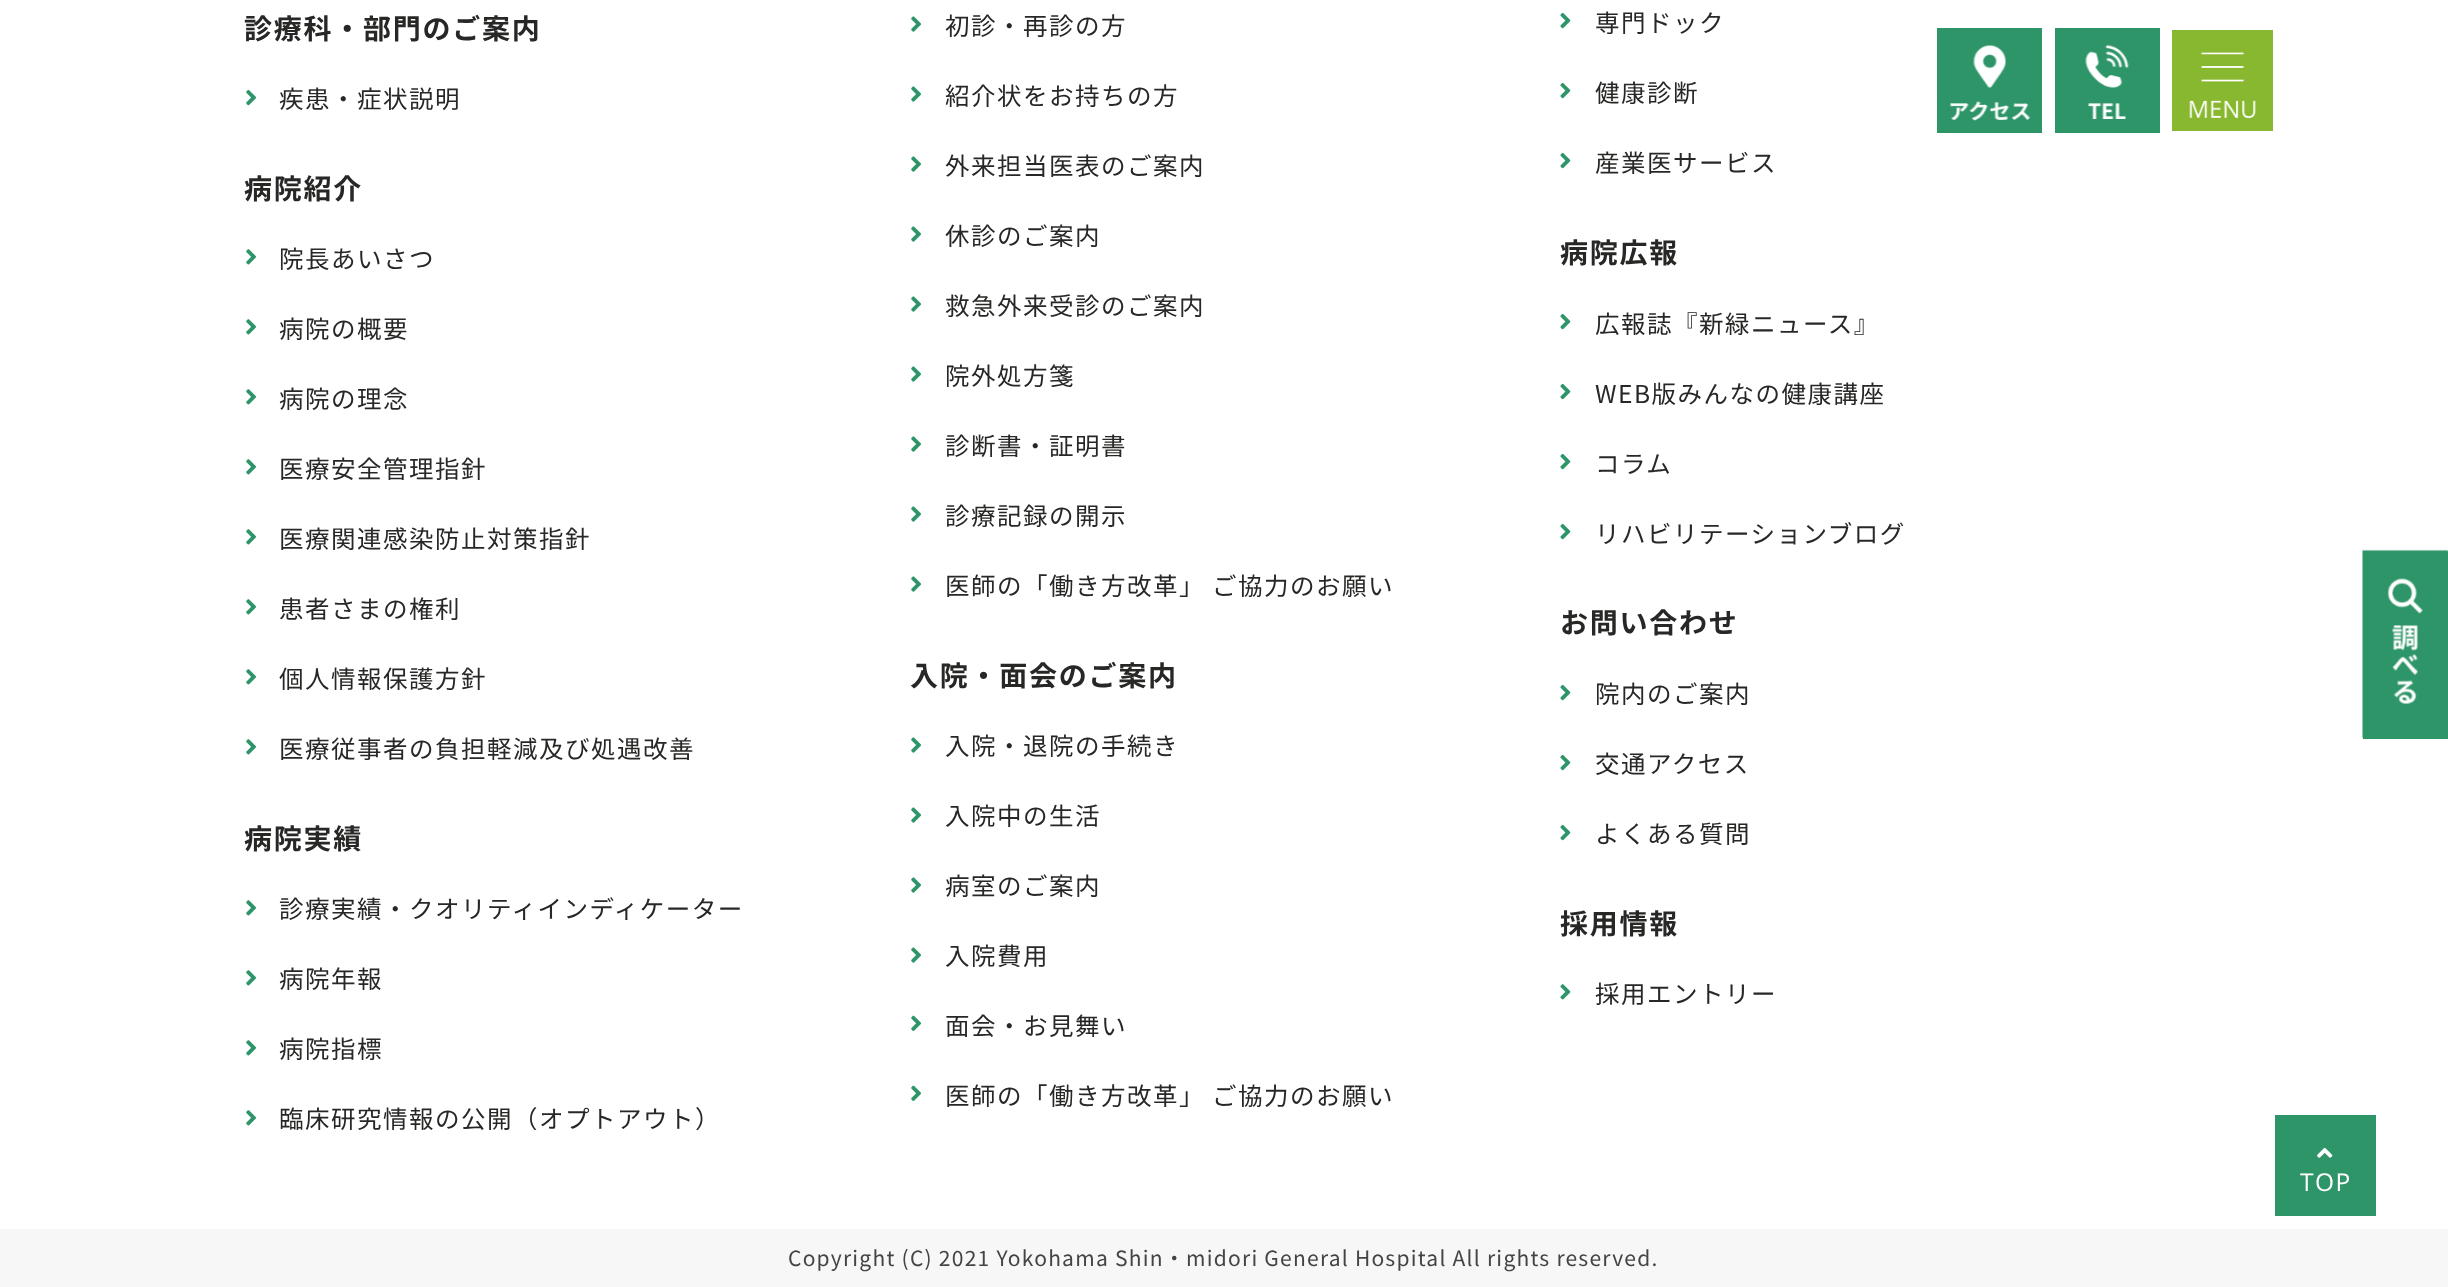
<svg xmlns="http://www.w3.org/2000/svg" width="2448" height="1287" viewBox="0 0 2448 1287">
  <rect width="100%" height="100%" fill="#fff"/>
  <image x="246" y="89" width="10" height="17" href="img/1.png"/>
  <image x="246" y="249" width="10" height="16" href="img/2.png"/>
  <image x="246" y="319" width="10" height="16" href="img/2.png"/>
  <image x="246" y="389" width="10" height="16" href="img/2.png"/>
  <image x="246" y="459" width="10" height="16" href="img/2.png"/>
  <image x="246" y="529" width="10" height="16" href="img/2.png"/>
  <image x="246" y="599" width="10" height="16" href="img/2.png"/>
  <image x="246" y="669" width="10" height="16" href="img/2.png"/>
  <image x="246" y="739" width="10" height="16" href="img/2.png"/>
  <image x="246" y="900" width="10" height="16" href="img/2.png"/>
  <image x="246" y="970" width="10" height="16" href="img/2.png"/>
  <image x="246" y="1040" width="10" height="16" href="img/2.png"/>
  <image x="246" y="1110" width="10" height="16" href="img/2.png"/>
  <image x="911" y="16" width="10" height="16" href="img/3.png"/>
  <image x="911" y="86" width="10" height="16" href="img/3.png"/>
  <image x="911" y="156" width="10" height="16" href="img/3.png"/>
  <image x="911" y="226" width="10" height="16" href="img/3.png"/>
  <image x="911" y="296" width="10" height="16" href="img/3.png"/>
  <image x="911" y="366" width="10" height="16" href="img/3.png"/>
  <image x="911" y="436" width="10" height="16" href="img/3.png"/>
  <image x="911" y="506" width="10" height="16" href="img/3.png"/>
  <image x="911" y="576" width="10" height="16" href="img/3.png"/>
  <image x="911" y="737" width="10" height="16" href="img/3.png"/>
  <image x="911" y="807" width="10" height="16" href="img/3.png"/>
  <image x="911" y="877" width="10" height="16" href="img/3.png"/>
  <image x="911" y="947" width="10" height="16" href="img/3.png"/>
  <image x="911" y="1015" width="10" height="16" href="img/4.png"/>
  <image x="911" y="1085" width="10" height="16" href="img/4.png"/>
  <image x="1560" y="12" width="11" height="17" href="img/5.png"/>
  <image x="1560" y="82" width="11" height="17" href="img/5.png"/>
  <image x="1560" y="152" width="11" height="17" href="img/5.png"/>
  <image x="1560" y="313" width="11" height="17" href="img/5.png"/>
  <image x="1560" y="383" width="11" height="17" href="img/5.png"/>
  <image x="1560" y="453" width="11" height="17" href="img/5.png"/>
  <image x="1560" y="523" width="11" height="17" href="img/5.png"/>
  <image x="1560" y="684" width="11" height="17" href="img/5.png"/>
  <image x="1560" y="754" width="11" height="17" href="img/5.png"/>
  <image x="1560" y="824" width="11" height="17" href="img/5.png"/>
  <image x="1560" y="984" width="11" height="16" href="img/6.png"/>
  <path d="M0 1229h2448v58H0z" fill="#f8f7f7"/>
  <path d="M1937 28h105v105H1937z" fill="#2e9568"/>
  <image x="1949" y="45" width="82" height="76" href="img/7.png"/>
  <path d="M2055 28h105v105H2055z" fill="#2e9568"/>
  <image x="2085" y="45" width="44" height="74" href="img/8.png"/>
  <path d="M2172 30h101v101H2172z" fill="#88b830"/>
  <image x="2189" y="52" width="67" height="67" href="img/9.png"/>
  <path d="M2363 552h85v187H2363z" fill="#2e9568"/>
  <image x="2362" y="549" width="86" height="190" href="img/10.png"/>
  <path d="M2275 1115h101v101H2275z" fill="#2e9568"/>
  <image x="2317" y="1147" width="16" height="11" href="img/11.png"/>
  <text x="244" y="39" font-family="Noto Sans JP" font-size="28" font-weight="bold" letter-spacing="1.75" fill="#272726">診療科・部門のご案内</text>
  <text x="279" y="108" font-family="Noto Sans JP" font-size="24.5" letter-spacing="1.5" fill="#272726">疾患・症状説明</text>
  <text x="244" y="199" font-family="Noto Sans JP" font-size="28" font-weight="bold" letter-spacing="1.75" fill="#272726">病院紹介</text>
  <g font-family="Noto Sans JP" font-size="24.5" letter-spacing="1.5" fill="#272726">
    <text x="279" y="268">院長あいさつ</text>
    <text x="279" y="338">病院の概要</text>
    <text x="279" y="408">病院の理念</text>
    <text x="279" y="478">医療安全管理指針</text>
    <text x="279" y="548">医療関連感染防止対策指針</text>
    <text x="279" y="618">患者さまの権利</text>
    <text x="279" y="688">個人情報保護方針</text>
    <text x="279" y="758">医療従事者の負担軽減及び処遇改善</text>
  </g>
  <text x="244" y="849" font-family="Noto Sans JP" font-size="28" font-weight="bold" letter-spacing="1.75" fill="#272726">病院実績</text>
  <g font-family="Noto Sans JP" font-size="24.5" letter-spacing="1.5" fill="#272726">
    <text x="279" y="918">診療実績・クオリティインディケーター</text>
    <text x="279" y="988">病院年報</text>
    <text x="279" y="1058">病院指標</text>
    <text x="279" y="1128">臨床研究情報の公開（オプトアウト）</text>
    <text x="945" y="35">初診・再診の方</text>
    <text x="945" y="105">紹介状をお持ちの方</text>
    <text x="945" y="175">外来担当医表のご案内</text>
    <text x="945" y="245">休診のご案内</text>
    <text x="945" y="315">救急外来受診のご案内</text>
    <text x="945" y="385">院外処方箋</text>
    <text x="945" y="455">診断書・証明書</text>
    <text x="945" y="525">診療記録の開示</text>
    <text x="945" y="595">医師の「働き方改革」 ご協力のお願い</text>
  </g>
  <text x="910" y="686" font-family="Noto Sans JP" font-size="28" font-weight="bold" letter-spacing="1.75" fill="#272726">入院・面会のご案内</text>
  <g font-family="Noto Sans JP" font-size="24.5" letter-spacing="1.5" fill="#272726">
    <text x="945" y="755">入院・退院の手続き</text>
    <text x="945" y="825">入院中の生活</text>
    <text x="945" y="895">病室のご案内</text>
    <text x="945" y="965">入院費用</text>
    <text x="945" y="1035">面会・お見舞い</text>
    <text x="945" y="1105">医師の「働き方改革」 ご協力のお願い</text>
    <text x="1595" y="32">専門ドック</text>
    <text x="1595" y="102">健康診断</text>
    <text x="1595" y="172">産業医サービス</text>
  </g>
  <text x="1560" y="263" font-family="Noto Sans JP" font-size="28" font-weight="bold" letter-spacing="1.75" fill="#272726">病院広報</text>
  <g font-family="Noto Sans JP" font-size="24.5" letter-spacing="1.5" fill="#272726">
    <text x="1595" y="333">広報誌『新緑ニュース』</text>
    <text x="1595" y="403">WEB版みんなの健康講座</text>
    <text x="1595" y="473">コラム</text>
    <text x="1595" y="543">リハビリテーションブログ</text>
  </g>
  <text x="1560" y="633" font-family="Noto Sans JP" font-size="28" font-weight="bold" letter-spacing="1.75" fill="#272726">お問い合わせ</text>
  <g font-family="Noto Sans JP" font-size="24.5" letter-spacing="1.5" fill="#272726">
    <text x="1595" y="703">院内のご案内</text>
    <text x="1595" y="773">交通アクセス</text>
    <text x="1595" y="843">よくある質問</text>
  </g>
  <text x="1560" y="934" font-family="Noto Sans JP" font-size="28" font-weight="bold" letter-spacing="1.75" fill="#272726">採用情報</text>
  <text x="1595" y="1003" font-family="Noto Sans JP" font-size="24.5" letter-spacing="1.5" fill="#272726">採用エントリー</text>
  <text x="788" y="1266" font-family="Noto Sans JP" font-size="21" letter-spacing="1.25" fill="#444">Copyright (C) 2021 Yokohama Shin・midori General Hospital All rights reserved.</text>
  <text x="2300" y="1191" font-family="Open Sans" font-size="24.5" letter-spacing="1.5" fill="#fff">TOP</text>
</svg>
